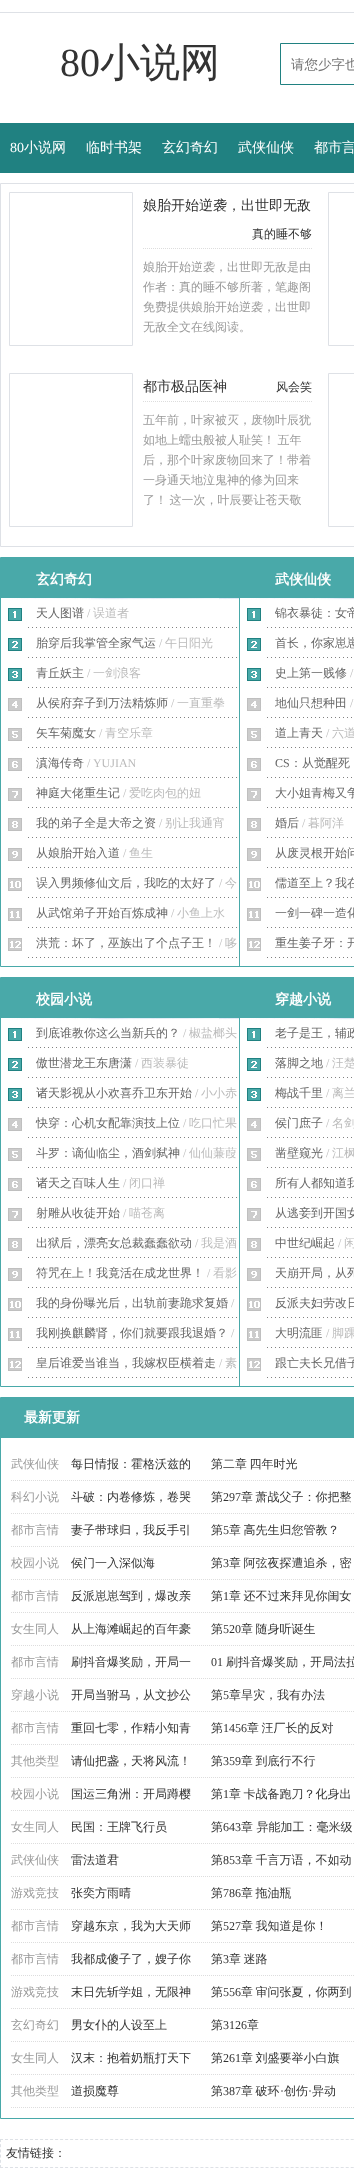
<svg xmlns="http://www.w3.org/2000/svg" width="354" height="2173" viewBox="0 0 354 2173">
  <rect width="100%" height="100%" fill="#fff"/>
  <path d="M0 12h354v1H0z" fill="#dee1e6"/>
  <path d="M280.5 43.5h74v41H280.5z" fill="none" stroke="#208181"/>
  <path d="M0 123h354v50H0z" fill="#208181"/>
  <path d="M0.5 183.5h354v363H0.5z" fill="none" stroke="#dee1e6"/>
  <path d="M9.5 192.5h123v153H9.5z" fill="none" stroke="#dee1e6"/>
  <path d="M143 248.5H312" fill="none" stroke="#ddd" stroke-dasharray="1 1"/>
  <path d="M328.5 192.5h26v153H328.5z" fill="none" stroke="#dee1e6"/>
  <path d="M9.5 373.5h123v153H9.5z" fill="none" stroke="#dee1e6"/>
  <path d="M143 401.5H312" fill="none" stroke="#ddd" stroke-dasharray="1 1"/>
  <path d="M328.5 373.5h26v153H328.5z" fill="none" stroke="#dee1e6"/>
  <path d="M0.5 557.5h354v409H0.5z" fill="none" stroke="#49a9a9"/>
  <image x="8" y="598" width="231" height="360" href="img/1.png"/>
  <path d="M1 558h238v40H1z" fill="#49a9a9"/>
  <image x="247" y="598" width="107" height="360" href="img/2.png"/>
  <path d="M239 558h1v408H239z" fill="#49a9a9"/>
  <path d="M240 558h114v40H240z" fill="#49a9a9"/>
  <path d="M0.5 977.5h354v409H0.5z" fill="none" stroke="#49a9a9"/>
  <image x="8" y="1018" width="231" height="360" href="img/1.png"/>
  <path d="M1 978h238v40H1z" fill="#49a9a9"/>
  <image x="247" y="1018" width="107" height="360" href="img/2.png"/>
  <path d="M239 978h1v408H239z" fill="#49a9a9"/>
  <path d="M240 978h114v40H240z" fill="#49a9a9"/>
  <path d="M0.5 1397.5h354v721H0.5z" fill="none" stroke="#49a9a9"/>
  <path d="M1 1398h353v40H1z" fill="#49a9a9"/>
  <path d="M11 1480.5H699" fill="none" stroke="#ddd" stroke-dasharray="1 1"/>
  <path d="M11 1513.5H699" fill="none" stroke="#ddd" stroke-dasharray="1 1"/>
  <path d="M11 1546.5H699" fill="none" stroke="#ddd" stroke-dasharray="1 1"/>
  <path d="M11 1579.5H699" fill="none" stroke="#ddd" stroke-dasharray="1 1"/>
  <path d="M11 1612.5H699" fill="none" stroke="#ddd" stroke-dasharray="1 1"/>
  <path d="M11 1645.5H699" fill="none" stroke="#ddd" stroke-dasharray="1 1"/>
  <path d="M11 1678.5H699" fill="none" stroke="#ddd" stroke-dasharray="1 1"/>
  <path d="M11 1711.5H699" fill="none" stroke="#ddd" stroke-dasharray="1 1"/>
  <path d="M11 1744.5H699" fill="none" stroke="#ddd" stroke-dasharray="1 1"/>
  <path d="M11 1777.5H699" fill="none" stroke="#ddd" stroke-dasharray="1 1"/>
  <path d="M11 1810.5H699" fill="none" stroke="#ddd" stroke-dasharray="1 1"/>
  <path d="M11 1843.5H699" fill="none" stroke="#ddd" stroke-dasharray="1 1"/>
  <path d="M11 1876.5H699" fill="none" stroke="#ddd" stroke-dasharray="1 1"/>
  <path d="M11 1909.5H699" fill="none" stroke="#ddd" stroke-dasharray="1 1"/>
  <path d="M11 1942.5H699" fill="none" stroke="#ddd" stroke-dasharray="1 1"/>
  <path d="M11 1975.5H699" fill="none" stroke="#ddd" stroke-dasharray="1 1"/>
  <path d="M11 2008.5H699" fill="none" stroke="#ddd" stroke-dasharray="1 1"/>
  <path d="M11 2041.5H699" fill="none" stroke="#ddd" stroke-dasharray="1 1"/>
  <path d="M11 2074.5H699" fill="none" stroke="#ddd" stroke-dasharray="1 1"/>
  <path d="M11 2107.5H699" fill="none" stroke="#ddd" stroke-dasharray="1 1"/>
  <path d="M0 2139.5H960" fill="none" stroke="#dee1e6" stroke-dasharray="3 2.01"/>
  <path d="M0 2167.5H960" fill="none" stroke="#dee1e6" stroke-dasharray="3 2.01"/>
  <path d="M.5 2139V2168" fill="none" stroke="#dee1e6" stroke-dasharray="3 2.2"/>
  <text x="60" y="76" font-family="Liberation Serif" font-size="40" fill="#333">80</text>
  <text x="100" y="76" font-family="WenQuanYi Zen Hei" font-size="40" font-weight="500" fill="#333">小说网</text>
  <text x="291" y="69" font-family="WenQuanYi Zen Hei" font-size="13.5" font-weight="500" fill="#757575">请您少字也</text>
  <text x="10" y="152" font-family="Liberation Serif" font-size="14" fill="#fff">80</text>
  <g font-family="WenQuanYi Zen Hei" font-size="14" font-weight="500" fill="#fff">
    <text x="24" y="152">小说网</text>
    <text x="86" y="152">临时书架</text>
    <text x="162" y="152">玄幻奇幻</text>
    <text x="238" y="152">武侠仙侠</text>
    <text x="314" y="152">都市言</text>
  </g>
  <text x="143" y="210" font-family="WenQuanYi Zen Hei" font-size="14" font-weight="500" fill="#333">娘胎开始逆袭，出世即无敌</text>
  <text x="252" y="238" font-family="WenQuanYi Zen Hei" font-size="12" font-weight="500" fill="#333">真的睡不够</text>
  <g font-family="WenQuanYi Zen Hei" font-size="12" font-weight="500" fill="#999">
    <text x="143" y="271">娘胎开始逆袭，出世即无敌是由</text>
    <text x="143" y="291">作者：真的睡不够所著，笔趣阁</text>
    <text x="143" y="311">免费提供娘胎开始逆袭，出世即</text>
    <text x="143" y="331">无敌全文在线阅读。</text>
  </g>
  <text x="143" y="391" font-family="WenQuanYi Zen Hei" font-size="14" font-weight="500" fill="#333">都市极品医神</text>
  <text x="276" y="391" font-family="WenQuanYi Zen Hei" font-size="12" font-weight="500" fill="#333">风会笑</text>
  <g font-family="WenQuanYi Zen Hei" font-size="12" font-weight="500" fill="#999">
    <text x="143" y="424">五年前，叶家被灭，废物叶辰犹</text>
    <text x="143" y="444" word-spacing="-1">如地上蠕虫般被人耻笑！ 五年</text>
    <text x="143" y="464">后，那个叶家废物回来了！带着</text>
    <text x="143" y="484">一身通天地泣鬼神的修为回来</text>
    <text x="143" y="504" word-spacing="-1">了！ 这一次，叶辰要让苍天敬</text>
  </g>
  <text x="36" y="584" font-family="WenQuanYi Zen Hei" font-size="14" font-weight="bold" fill="#fff">玄幻奇幻</text>
  <text x="36" y="617" font-family="WenQuanYi Zen Hei" font-size="12" font-weight="500" fill="#666">天人图谱</text>
  <text x="87" y="617" font-family="Liberation Serif" font-size="12" fill="#bbb">/</text>
  <text x="93" y="617" font-family="WenQuanYi Zen Hei" font-size="12" font-weight="500" fill="#bbb">误道者</text>
  <text x="36" y="647" font-family="WenQuanYi Zen Hei" font-size="12" font-weight="500" fill="#666">胎穿后我掌管全家气运</text>
  <text x="159" y="647" font-family="Liberation Serif" font-size="12" fill="#bbb">/</text>
  <text x="165" y="647" font-family="WenQuanYi Zen Hei" font-size="12" font-weight="500" fill="#bbb">午日阳光</text>
  <text x="36" y="677" font-family="WenQuanYi Zen Hei" font-size="12" font-weight="500" fill="#666">青丘妖主</text>
  <text x="87" y="677" font-family="Liberation Serif" font-size="12" fill="#bbb">/</text>
  <text x="93" y="677" font-family="WenQuanYi Zen Hei" font-size="12" font-weight="500" fill="#bbb">一剑浪客</text>
  <text x="36" y="707" font-family="WenQuanYi Zen Hei" font-size="12" font-weight="500" fill="#666">从侯府弃子到万法精炼师</text>
  <text x="171" y="707" font-family="Liberation Serif" font-size="12" fill="#bbb">/</text>
  <text x="177" y="707" font-family="WenQuanYi Zen Hei" font-size="12" font-weight="500" fill="#bbb">一直重拳</text>
  <text x="36" y="737" font-family="WenQuanYi Zen Hei" font-size="12" font-weight="500" fill="#666">矢车菊魔女</text>
  <text x="99" y="737" font-family="Liberation Serif" font-size="12" fill="#bbb">/</text>
  <text x="105" y="737" font-family="WenQuanYi Zen Hei" font-size="12" font-weight="500" fill="#bbb">青空乐章</text>
  <text x="36" y="767" font-family="WenQuanYi Zen Hei" font-size="12" font-weight="500" fill="#666">滇海传奇</text>
  <text x="87" y="767" font-family="Liberation Serif" font-size="12" fill="#bbb">/ YUJIAN</text>
  <text x="36" y="797" font-family="WenQuanYi Zen Hei" font-size="12" font-weight="500" fill="#666">神庭大佬重生记</text>
  <text x="123" y="797" font-family="Liberation Serif" font-size="12" fill="#bbb">/</text>
  <text x="129" y="797" font-family="WenQuanYi Zen Hei" font-size="12" font-weight="500" fill="#bbb">爱吃肉包的妞</text>
  <text x="36" y="827" font-family="WenQuanYi Zen Hei" font-size="12" font-weight="500" fill="#666">我的弟子全是大帝之资</text>
  <text x="159" y="827" font-family="Liberation Serif" font-size="12" fill="#bbb">/</text>
  <text x="165" y="827" font-family="WenQuanYi Zen Hei" font-size="12" font-weight="500" fill="#bbb">别让我通宵</text>
  <text x="36" y="857" font-family="WenQuanYi Zen Hei" font-size="12" font-weight="500" fill="#666">从娘胎开始入道</text>
  <text x="123" y="857" font-family="Liberation Serif" font-size="12" fill="#bbb">/</text>
  <text x="129" y="857" font-family="WenQuanYi Zen Hei" font-size="12" font-weight="500" fill="#bbb">鱼生</text>
  <text x="36" y="887" font-family="WenQuanYi Zen Hei" font-size="12" font-weight="500" fill="#666">误入男频修仙文后，我吃的太好了</text>
  <text x="219" y="887" font-family="Liberation Serif" font-size="12" fill="#bbb">/</text>
  <text x="225" y="887" font-family="WenQuanYi Zen Hei" font-size="12" font-weight="500" fill="#bbb">今</text>
  <text x="36" y="917" font-family="WenQuanYi Zen Hei" font-size="12" font-weight="500" fill="#666">从武馆弟子开始百炼成神</text>
  <text x="171" y="917" font-family="Liberation Serif" font-size="12" fill="#bbb">/</text>
  <text x="177" y="917" font-family="WenQuanYi Zen Hei" font-size="12" font-weight="500" fill="#bbb">小鱼上水</text>
  <text x="36" y="947" font-family="WenQuanYi Zen Hei" font-size="12" font-weight="500" fill="#666">洪荒：坏了，巫族出了个点子王！</text>
  <text x="219" y="947" font-family="Liberation Serif" font-size="12" fill="#bbb">/</text>
  <text x="225" y="947" font-family="WenQuanYi Zen Hei" font-size="12" font-weight="500" fill="#bbb">哆</text>
  <text x="275" y="584" font-family="WenQuanYi Zen Hei" font-size="14" font-weight="bold" fill="#fff">武侠仙侠</text>
  <g font-family="WenQuanYi Zen Hei" font-size="12" font-weight="500" fill="#666">
    <text x="275" y="617">锦衣暴徒：女帝</text>
    <text x="275" y="647">首长，你家崽崽</text>
    <text x="275" y="677">史上第一贱修</text>
  </g>
  <text x="350" y="677" font-family="Liberation Serif" font-size="12" fill="#bbb">/</text>
  <text x="275" y="707" font-family="WenQuanYi Zen Hei" font-size="12" font-weight="500" fill="#666">地仙只想种田</text>
  <text x="350" y="707" font-family="Liberation Serif" font-size="12" fill="#bbb">/</text>
  <text x="275" y="737" font-family="WenQuanYi Zen Hei" font-size="12" font-weight="500" fill="#666">道上青天</text>
  <text x="326" y="737" font-family="Liberation Serif" font-size="12" fill="#bbb">/</text>
  <text x="332" y="737" font-family="WenQuanYi Zen Hei" font-size="12" font-weight="500" fill="#bbb">六道</text>
  <text x="275" y="767" font-family="Liberation Serif" font-size="12" fill="#666">CS</text>
  <g font-family="WenQuanYi Zen Hei" font-size="12" font-weight="500" fill="#666">
    <text x="290" y="767">：从觉醒死</text>
    <text x="275" y="797">大小姐青梅又争</text>
    <text x="275" y="827">婚后</text>
  </g>
  <text x="302" y="827" font-family="Liberation Serif" font-size="12" fill="#bbb">/</text>
  <text x="308" y="827" font-family="WenQuanYi Zen Hei" font-size="12" font-weight="500" fill="#bbb">暮阿洋</text>
  <g font-family="WenQuanYi Zen Hei" font-size="12" font-weight="500" fill="#666">
    <text x="275" y="857">从废灵根开始问</text>
    <text x="275" y="887">儒道至上？我在</text>
    <text x="275" y="917">一剑一碑一造化</text>
    <text x="275" y="947">重生姜子牙：开</text>
  </g>
  <text x="36" y="1004" font-family="WenQuanYi Zen Hei" font-size="14" font-weight="bold" fill="#fff">校园小说</text>
  <text x="36" y="1037" font-family="WenQuanYi Zen Hei" font-size="12" font-weight="500" fill="#666">到底谁教你这么当新兵的？</text>
  <text x="183" y="1037" font-family="Liberation Serif" font-size="12" fill="#bbb">/</text>
  <text x="189" y="1037" font-family="WenQuanYi Zen Hei" font-size="12" font-weight="500" fill="#bbb">椒盐榔头</text>
  <text x="36" y="1067" font-family="WenQuanYi Zen Hei" font-size="12" font-weight="500" fill="#666">傲世潜龙王东唐潇</text>
  <text x="135" y="1067" font-family="Liberation Serif" font-size="12" fill="#bbb">/</text>
  <text x="141" y="1067" font-family="WenQuanYi Zen Hei" font-size="12" font-weight="500" fill="#bbb">西装暴徒</text>
  <text x="36" y="1097" font-family="WenQuanYi Zen Hei" font-size="12" font-weight="500" fill="#666">诸天影视从小欢喜乔卫东开始</text>
  <text x="195" y="1097" font-family="Liberation Serif" font-size="12" fill="#bbb">/</text>
  <text x="201" y="1097" font-family="WenQuanYi Zen Hei" font-size="12" font-weight="500" fill="#bbb">小小赤</text>
  <text x="36" y="1127" font-family="WenQuanYi Zen Hei" font-size="12" font-weight="500" fill="#666">快穿：心机女配靠演技上位</text>
  <text x="183" y="1127" font-family="Liberation Serif" font-size="12" fill="#bbb">/</text>
  <text x="189" y="1127" font-family="WenQuanYi Zen Hei" font-size="12" font-weight="500" fill="#bbb">吃口忙果</text>
  <text x="36" y="1157" font-family="WenQuanYi Zen Hei" font-size="12" font-weight="500" fill="#666">斗罗：谪仙临尘，酒剑弑神</text>
  <text x="183" y="1157" font-family="Liberation Serif" font-size="12" fill="#bbb">/</text>
  <text x="189" y="1157" font-family="WenQuanYi Zen Hei" font-size="12" font-weight="500" fill="#bbb">仙仙蒹葭</text>
  <text x="36" y="1187" font-family="WenQuanYi Zen Hei" font-size="12" font-weight="500" fill="#666">诸天之百味人生</text>
  <text x="123" y="1187" font-family="Liberation Serif" font-size="12" fill="#bbb">/</text>
  <text x="129" y="1187" font-family="WenQuanYi Zen Hei" font-size="12" font-weight="500" fill="#bbb">闭口禅</text>
  <text x="36" y="1217" font-family="WenQuanYi Zen Hei" font-size="12" font-weight="500" fill="#666">射雕从收徒开始</text>
  <text x="123" y="1217" font-family="Liberation Serif" font-size="12" fill="#bbb">/</text>
  <text x="129" y="1217" font-family="WenQuanYi Zen Hei" font-size="12" font-weight="500" fill="#bbb">喵苍离</text>
  <text x="36" y="1247" font-family="WenQuanYi Zen Hei" font-size="12" font-weight="500" fill="#666">出狱后，漂亮女总裁蠢蠢欲动</text>
  <text x="195" y="1247" font-family="Liberation Serif" font-size="12" fill="#bbb">/</text>
  <text x="201" y="1247" font-family="WenQuanYi Zen Hei" font-size="12" font-weight="500" fill="#bbb">我是酒</text>
  <text x="36" y="1277" font-family="WenQuanYi Zen Hei" font-size="12" font-weight="500" fill="#666">符咒在上！我竟活在成龙世界！</text>
  <text x="207" y="1277" font-family="Liberation Serif" font-size="12" fill="#bbb">/</text>
  <text x="213" y="1277" font-family="WenQuanYi Zen Hei" font-size="12" font-weight="500" fill="#bbb">看影</text>
  <text x="36" y="1307" font-family="WenQuanYi Zen Hei" font-size="12" font-weight="500" fill="#666">我的身份曝光后，出轨前妻跪求复婚</text>
  <text x="231" y="1307" font-family="Liberation Serif" font-size="12" fill="#bbb">/</text>
  <text x="36" y="1337" font-family="WenQuanYi Zen Hei" font-size="12" font-weight="500" fill="#666">我刚换麒麟肾，你们就要跟我退婚？</text>
  <text x="231" y="1337" font-family="Liberation Serif" font-size="12" fill="#bbb">/</text>
  <text x="36" y="1367" font-family="WenQuanYi Zen Hei" font-size="12" font-weight="500" fill="#666">皇后谁爱当谁当，我嫁权臣横着走</text>
  <text x="219" y="1367" font-family="Liberation Serif" font-size="12" fill="#bbb">/</text>
  <text x="225" y="1367" font-family="WenQuanYi Zen Hei" font-size="12" font-weight="500" fill="#bbb">素</text>
  <text x="275" y="1004" font-family="WenQuanYi Zen Hei" font-size="14" font-weight="bold" fill="#fff">穿越小说</text>
  <g font-family="WenQuanYi Zen Hei" font-size="12" font-weight="500" fill="#666">
    <text x="275" y="1037">老子是王，辅政</text>
    <text x="275" y="1067">落脚之地</text>
  </g>
  <text x="326" y="1067" font-family="Liberation Serif" font-size="12" fill="#bbb">/</text>
  <text x="332" y="1067" font-family="WenQuanYi Zen Hei" font-size="12" font-weight="500" fill="#bbb">汪楚</text>
  <text x="275" y="1097" font-family="WenQuanYi Zen Hei" font-size="12" font-weight="500" fill="#666">梅战千里</text>
  <text x="326" y="1097" font-family="Liberation Serif" font-size="12" fill="#bbb">/</text>
  <text x="332" y="1097" font-family="WenQuanYi Zen Hei" font-size="12" font-weight="500" fill="#bbb">离兰</text>
  <text x="275" y="1127" font-family="WenQuanYi Zen Hei" font-size="12" font-weight="500" fill="#666">侯门庶子</text>
  <text x="326" y="1127" font-family="Liberation Serif" font-size="12" fill="#bbb">/</text>
  <text x="332" y="1127" font-family="WenQuanYi Zen Hei" font-size="12" font-weight="500" fill="#bbb">名剑</text>
  <text x="275" y="1157" font-family="WenQuanYi Zen Hei" font-size="12" font-weight="500" fill="#666">凿壁窥光</text>
  <text x="326" y="1157" font-family="Liberation Serif" font-size="12" fill="#bbb">/</text>
  <text x="332" y="1157" font-family="WenQuanYi Zen Hei" font-size="12" font-weight="500" fill="#bbb">江枫</text>
  <g font-family="WenQuanYi Zen Hei" font-size="12" font-weight="500" fill="#666">
    <text x="275" y="1187">所有人都知道我</text>
    <text x="275" y="1217">从逃妾到开国女</text>
    <text x="275" y="1247">中世纪崛起</text>
  </g>
  <text x="338" y="1247" font-family="Liberation Serif" font-size="12" fill="#bbb">/</text>
  <text x="344" y="1247" font-family="WenQuanYi Zen Hei" font-size="12" font-weight="500" fill="#bbb">闲</text>
  <g font-family="WenQuanYi Zen Hei" font-size="12" font-weight="500" fill="#666">
    <text x="275" y="1277">天崩开局，从死</text>
    <text x="275" y="1307">反派夫妇劳改日</text>
    <text x="275" y="1337">大明流匪</text>
  </g>
  <text x="326" y="1337" font-family="Liberation Serif" font-size="12" fill="#bbb">/</text>
  <text x="332" y="1337" font-family="WenQuanYi Zen Hei" font-size="12" font-weight="500" fill="#bbb">脚踝</text>
  <text x="275" y="1367" font-family="WenQuanYi Zen Hei" font-size="12" font-weight="500" fill="#666">跟亡夫长兄借子</text>
  <text x="24" y="1422" font-family="WenQuanYi Zen Hei" font-size="14" font-weight="bold" fill="#fff">最新更新</text>
  <text x="11" y="1468" font-family="WenQuanYi Zen Hei" font-size="12" font-weight="500" fill="#999">武侠仙侠</text>
  <g font-family="WenQuanYi Zen Hei" font-size="12" font-weight="500" fill="#333">
    <text x="71" y="1468">每日情报：霍格沃兹的</text>
    <text x="211" y="1468" word-spacing="-1">第二章 四年时光</text>
  </g>
  <text x="11" y="1501" font-family="WenQuanYi Zen Hei" font-size="12" font-weight="500" fill="#999">科幻小说</text>
  <g font-family="WenQuanYi Zen Hei" font-size="12" font-weight="500" fill="#333">
    <text x="71" y="1501">斗破：内卷修炼，卷哭</text>
    <text x="211" y="1501">第</text>
  </g>
  <text x="223" y="1501" font-family="Liberation Serif" font-size="12" fill="#333">297</text>
  <text x="241" y="1501" word-spacing="-1" font-family="WenQuanYi Zen Hei" font-size="12" font-weight="500" fill="#333">章 萧战父子：你把整</text>
  <text x="11" y="1534" font-family="WenQuanYi Zen Hei" font-size="12" font-weight="500" fill="#999">都市言情</text>
  <g font-family="WenQuanYi Zen Hei" font-size="12" font-weight="500" fill="#333">
    <text x="71" y="1534">妻子带球归，我反手引</text>
    <text x="211" y="1534">第</text>
  </g>
  <text x="223" y="1534" font-family="Liberation Serif" font-size="12" fill="#333">5</text>
  <text x="229" y="1534" word-spacing="-1" font-family="WenQuanYi Zen Hei" font-size="12" font-weight="500" fill="#333">章 高先生归您管教？</text>
  <text x="11" y="1567" font-family="WenQuanYi Zen Hei" font-size="12" font-weight="500" fill="#999">校园小说</text>
  <g font-family="WenQuanYi Zen Hei" font-size="12" font-weight="500" fill="#333">
    <text x="71" y="1567">侯门一入深似海</text>
    <text x="211" y="1567">第</text>
  </g>
  <text x="223" y="1567" font-family="Liberation Serif" font-size="12" fill="#333">3</text>
  <text x="229" y="1567" word-spacing="-1" font-family="WenQuanYi Zen Hei" font-size="12" font-weight="500" fill="#333">章 阿弦夜探遭追杀，密</text>
  <text x="11" y="1600" font-family="WenQuanYi Zen Hei" font-size="12" font-weight="500" fill="#999">都市言情</text>
  <g font-family="WenQuanYi Zen Hei" font-size="12" font-weight="500" fill="#333">
    <text x="71" y="1600">反派崽崽驾到，爆改亲</text>
    <text x="211" y="1600">第</text>
  </g>
  <text x="223" y="1600" font-family="Liberation Serif" font-size="12" fill="#333">1</text>
  <text x="229" y="1600" word-spacing="-1" font-family="WenQuanYi Zen Hei" font-size="12" font-weight="500" fill="#333">章 还不过来拜见你闺女</text>
  <text x="11" y="1633" font-family="WenQuanYi Zen Hei" font-size="12" font-weight="500" fill="#999">女生同人</text>
  <g font-family="WenQuanYi Zen Hei" font-size="12" font-weight="500" fill="#333">
    <text x="71" y="1633">从上海滩崛起的百年豪</text>
    <text x="211" y="1633">第</text>
  </g>
  <text x="223" y="1633" font-family="Liberation Serif" font-size="12" fill="#333">520</text>
  <text x="241" y="1633" word-spacing="-1" font-family="WenQuanYi Zen Hei" font-size="12" font-weight="500" fill="#333">章 随身听诞生</text>
  <text x="11" y="1666" font-family="WenQuanYi Zen Hei" font-size="12" font-weight="500" fill="#999">都市言情</text>
  <text x="71" y="1666" font-family="WenQuanYi Zen Hei" font-size="12" font-weight="500" fill="#333">刷抖音爆奖励，开局一</text>
  <text x="211" y="1666" font-family="Liberation Serif" font-size="12" fill="#333">01</text>
  <text x="226" y="1666" font-family="WenQuanYi Zen Hei" font-size="12" font-weight="500" fill="#333">刷抖音爆奖励，开局法拉</text>
  <text x="11" y="1699" font-family="WenQuanYi Zen Hei" font-size="12" font-weight="500" fill="#999">穿越小说</text>
  <g font-family="WenQuanYi Zen Hei" font-size="12" font-weight="500" fill="#333">
    <text x="71" y="1699">开局当驸马，从文抄公</text>
    <text x="211" y="1699">第</text>
  </g>
  <text x="223" y="1699" font-family="Liberation Serif" font-size="12" fill="#333">5</text>
  <text x="229" y="1699" font-family="WenQuanYi Zen Hei" font-size="12" font-weight="500" fill="#333">章旱灾，我有办法</text>
  <text x="11" y="1732" font-family="WenQuanYi Zen Hei" font-size="12" font-weight="500" fill="#999">都市言情</text>
  <g font-family="WenQuanYi Zen Hei" font-size="12" font-weight="500" fill="#333">
    <text x="71" y="1732">重回七零，作精小知青</text>
    <text x="211" y="1732">第</text>
  </g>
  <text x="223" y="1732" font-family="Liberation Serif" font-size="12" fill="#333">1456</text>
  <text x="247" y="1732" word-spacing="-1" font-family="WenQuanYi Zen Hei" font-size="12" font-weight="500" fill="#333">章 汪厂长的反对</text>
  <text x="11" y="1765" font-family="WenQuanYi Zen Hei" font-size="12" font-weight="500" fill="#999">其他类型</text>
  <g font-family="WenQuanYi Zen Hei" font-size="12" font-weight="500" fill="#333">
    <text x="71" y="1765">请仙把盏，天将风流！</text>
    <text x="211" y="1765">第</text>
  </g>
  <text x="223" y="1765" font-family="Liberation Serif" font-size="12" fill="#333">359</text>
  <text x="241" y="1765" word-spacing="-1" font-family="WenQuanYi Zen Hei" font-size="12" font-weight="500" fill="#333">章 到底行不行</text>
  <text x="11" y="1798" font-family="WenQuanYi Zen Hei" font-size="12" font-weight="500" fill="#999">校园小说</text>
  <g font-family="WenQuanYi Zen Hei" font-size="12" font-weight="500" fill="#333">
    <text x="71" y="1798">国运三角洲：开局蹲樱</text>
    <text x="211" y="1798">第</text>
  </g>
  <text x="223" y="1798" font-family="Liberation Serif" font-size="12" fill="#333">1</text>
  <text x="229" y="1798" word-spacing="-1" font-family="WenQuanYi Zen Hei" font-size="12" font-weight="500" fill="#333">章 卡战备跑刀？化身出</text>
  <text x="11" y="1831" font-family="WenQuanYi Zen Hei" font-size="12" font-weight="500" fill="#999">女生同人</text>
  <g font-family="WenQuanYi Zen Hei" font-size="12" font-weight="500" fill="#333">
    <text x="71" y="1831">民国：王牌飞行员</text>
    <text x="211" y="1831">第</text>
  </g>
  <text x="223" y="1831" font-family="Liberation Serif" font-size="12" fill="#333">643</text>
  <text x="241" y="1831" font-family="WenQuanYi Zen Hei" font-size="12" font-weight="500" fill="#333">章 异能加工：毫米级</text>
  <text x="11" y="1864" font-family="WenQuanYi Zen Hei" font-size="12" font-weight="500" fill="#999">武侠仙侠</text>
  <g font-family="WenQuanYi Zen Hei" font-size="12" font-weight="500" fill="#333">
    <text x="71" y="1864">雷法道君</text>
    <text x="211" y="1864">第</text>
  </g>
  <text x="223" y="1864" font-family="Liberation Serif" font-size="12" fill="#333">853</text>
  <text x="241" y="1864" word-spacing="-1" font-family="WenQuanYi Zen Hei" font-size="12" font-weight="500" fill="#333">章 千言万语，不如动</text>
  <text x="11" y="1897" font-family="WenQuanYi Zen Hei" font-size="12" font-weight="500" fill="#999">游戏竞技</text>
  <g font-family="WenQuanYi Zen Hei" font-size="12" font-weight="500" fill="#333">
    <text x="71" y="1897">张奕方雨晴</text>
    <text x="211" y="1897">第</text>
  </g>
  <text x="223" y="1897" font-family="Liberation Serif" font-size="12" fill="#333">786</text>
  <text x="241" y="1897" word-spacing="-1" font-family="WenQuanYi Zen Hei" font-size="12" font-weight="500" fill="#333">章 拖油瓶</text>
  <text x="11" y="1930" font-family="WenQuanYi Zen Hei" font-size="12" font-weight="500" fill="#999">都市言情</text>
  <g font-family="WenQuanYi Zen Hei" font-size="12" font-weight="500" fill="#333">
    <text x="71" y="1930">穿越东京，我为大天师</text>
    <text x="211" y="1930">第</text>
  </g>
  <text x="223" y="1930" font-family="Liberation Serif" font-size="12" fill="#333">527</text>
  <text x="241" y="1930" word-spacing="-1" font-family="WenQuanYi Zen Hei" font-size="12" font-weight="500" fill="#333">章 我知道是你！</text>
  <text x="11" y="1963" font-family="WenQuanYi Zen Hei" font-size="12" font-weight="500" fill="#999">都市言情</text>
  <g font-family="WenQuanYi Zen Hei" font-size="12" font-weight="500" fill="#333">
    <text x="71" y="1963">我都成傻子了，嫂子你</text>
    <text x="211" y="1963">第</text>
  </g>
  <text x="223" y="1963" font-family="Liberation Serif" font-size="12" fill="#333">3</text>
  <text x="229" y="1963" word-spacing="-1" font-family="WenQuanYi Zen Hei" font-size="12" font-weight="500" fill="#333">章 迷路</text>
  <text x="11" y="1996" font-family="WenQuanYi Zen Hei" font-size="12" font-weight="500" fill="#999">游戏竞技</text>
  <g font-family="WenQuanYi Zen Hei" font-size="12" font-weight="500" fill="#333">
    <text x="71" y="1996">末日先斩学姐，无限神</text>
    <text x="211" y="1996">第</text>
  </g>
  <text x="223" y="1996" font-family="Liberation Serif" font-size="12" fill="#333">556</text>
  <text x="241" y="1996" word-spacing="-1" font-family="WenQuanYi Zen Hei" font-size="12" font-weight="500" fill="#333">章 审问张夏，你两到</text>
  <text x="11" y="2029" font-family="WenQuanYi Zen Hei" font-size="12" font-weight="500" fill="#999">玄幻奇幻</text>
  <g font-family="WenQuanYi Zen Hei" font-size="12" font-weight="500" fill="#333">
    <text x="71" y="2029">男女仆的人设至上</text>
    <text x="211" y="2029">第</text>
  </g>
  <text x="223" y="2029" font-family="Liberation Serif" font-size="12" fill="#333">3126</text>
  <text x="247" y="2029" font-family="WenQuanYi Zen Hei" font-size="12" font-weight="500" fill="#333">章</text>
  <text x="11" y="2062" font-family="WenQuanYi Zen Hei" font-size="12" font-weight="500" fill="#999">女生同人</text>
  <g font-family="WenQuanYi Zen Hei" font-size="12" font-weight="500" fill="#333">
    <text x="71" y="2062">汉末：抱着奶瓶打天下</text>
    <text x="211" y="2062">第</text>
  </g>
  <text x="223" y="2062" font-family="Liberation Serif" font-size="12" fill="#333">261</text>
  <text x="241" y="2062" word-spacing="-1" font-family="WenQuanYi Zen Hei" font-size="12" font-weight="500" fill="#333">章 刘盛要举小白旗</text>
  <text x="11" y="2095" font-family="WenQuanYi Zen Hei" font-size="12" font-weight="500" fill="#999">其他类型</text>
  <g font-family="WenQuanYi Zen Hei" font-size="12" font-weight="500" fill="#333">
    <text x="71" y="2095">道损魔尊</text>
    <text x="211" y="2095">第</text>
  </g>
  <text x="223" y="2095" font-family="Liberation Serif" font-size="12" fill="#333">387</text>
  <text x="241" y="2095" word-spacing="-1" font-family="WenQuanYi Zen Hei" font-size="12" font-weight="500" fill="#333">章 破环</text>
  <text x="280" y="2095" font-family="Liberation Serif" font-size="12" fill="#333">·</text>
  <text x="284" y="2095" font-family="WenQuanYi Zen Hei" font-size="12" font-weight="500" fill="#333">创伤</text>
  <text x="308" y="2095" font-family="Liberation Serif" font-size="12" fill="#333">·</text>
  <g font-family="WenQuanYi Zen Hei" font-size="12" font-weight="500" fill="#333">
    <text x="312" y="2095">异动</text>
    <text x="6" y="2157">友情链接：</text>
  </g>
</svg>
